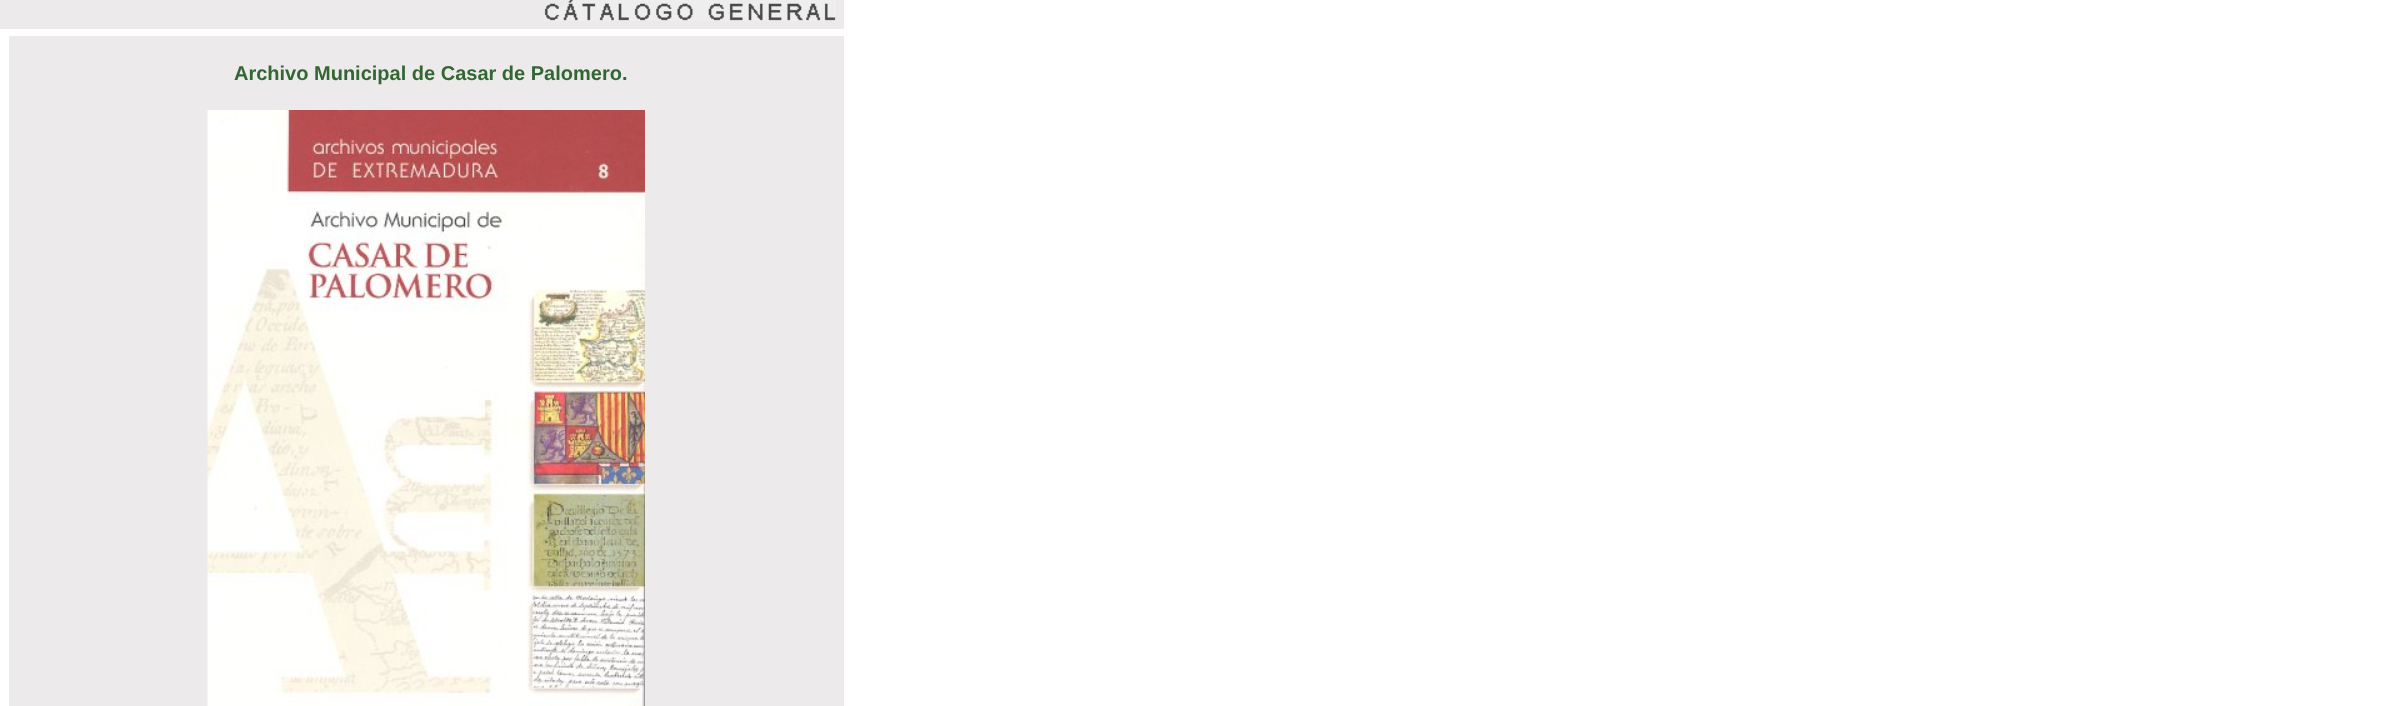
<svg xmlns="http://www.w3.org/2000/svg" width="2386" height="706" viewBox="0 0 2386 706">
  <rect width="100%" height="100%" fill="#fff"/>
  <path d="M0 0h844v29H0z" fill="#eceaeb"/>
  <image x="544" y="0" width="292" height="21" href="img/1.png"/>
  <path d="M9 36h835v670H9z" fill="#eceaeb"/>
  <image x="207" y="110" width="438" height="596" href="img/2.png"/>
  <text x="234" y="80" font-family="Liberation Sans" font-size="20" font-weight="bold" fill="#346633">Archivo Municipal de Casar de Palomero.</text>
</svg>
